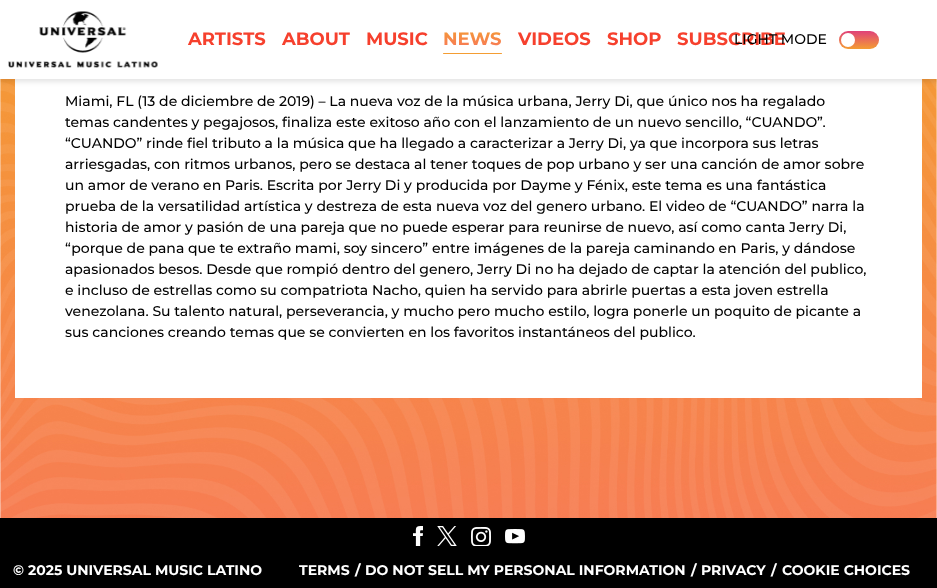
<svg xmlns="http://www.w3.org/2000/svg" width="937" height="588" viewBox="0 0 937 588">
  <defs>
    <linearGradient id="g1" gradientUnits="userSpaceOnUse" x1="473" y1="28" x2="473" y2="54"><stop offset="0" stop-color="#f49d33"/><stop offset="1" stop-color="#f96d63"/></linearGradient>
    <linearGradient id="g2" gradientUnits="userSpaceOnUse" x1="859" y1="31" x2="859" y2="49"><stop offset="0" stop-color="#e04179"/><stop offset="1" stop-color="#f49d33"/></linearGradient>
  </defs>
  <rect width="100%" height="100%" fill="#fff"/>
  <image x="0" y="79" width="937" height="439" href="img/1.png"/>
  <path d="M15 79h907v319H15z" fill="#fff"/>
  <path d="M0 3h937v79H0z" fill="#0000001a" filter="blur(2.5px)"/>
  <path d="M0 0h937v79H0z" fill="#fff"/>
  <image x="8" y="11" width="150" height="57" href="img/2.png"/>
  <rect x="443" y="53" width="59" height="1" rx="0.5" fill="#f49d33"/>
  <rect x="839" y="31" width="40" height="18" rx="9" fill="url(#g2)"/>
  <circle cx="848" cy="40" r="7" fill="#fff"/>
  <path d="M0 518h937v70H0z" fill="#000"/>
  <image x="413" y="526" width="10" height="20" href="img/3.png"/>
  <image x="437" y="526" width="20" height="20" href="img/4.png"/>
  <image x="471" y="527" width="20" height="19" href="img/5.png"/>
  <image x="505" y="529" width="20" height="15" href="img/6.png"/>
  <g font-family="Montserrat" font-size="18" font-weight="100" fill="#f6402d">
    <text x="188" y="45">ARTISTS</text>
    <text x="282" y="45">ABOUT</text>
    <text x="366" y="45">MUSIC</text>
  </g>
  <text x="443" y="45" font-family="Montserrat" font-size="18" font-weight="100" fill="url(#g1)">NEWS</text>
  <g font-family="Montserrat" font-size="18" font-weight="100" fill="#f6402d">
    <text x="518" y="45">VIDEOS</text>
    <text x="607" y="45">SHOP</text>
    <text x="677" y="45">SUBSCRIBE</text>
  </g>
  <g font-family="Montserrat" font-size="14" font-weight="500" fill="#000">
    <text x="734" y="44">LIGHT MODE</text>
    <text x="65" y="106">Miami, FL (13 de diciembre de 2019) – La nueva voz de la música urbana, Jerry Di, que único nos ha regalado</text>
    <text x="65" y="127">temas candentes y pegajosos, finaliza este exitoso año con el lanzamiento de un nuevo sencillo, “CUANDO”.</text>
    <text x="65" y="148">“CUANDO” rinde fiel tributo a la música que ha llegado a caracterizar a Jerry Di, ya que incorpora sus letras</text>
    <text x="65" y="169">arriesgadas, con ritmos urbanos, pero se destaca al tener toques de pop urbano y ser una canción de amor sobre</text>
    <text x="65" y="190">un amor de verano en Paris. Escrita por Jerry Di y producida por Dayme y Fénix, este tema es una fantástica</text>
    <text x="65" y="211">prueba de la versatilidad artística y destreza de esta nueva voz del genero urbano. El video de “CUANDO” narra la</text>
    <text x="65" y="232">historia de amor y pasión de una pareja que no puede esperar para reunirse de nuevo, así como canta Jerry Di,</text>
    <text x="65" y="253">“porque de pana que te extraño mami, soy sincero” entre imágenes de la pareja caminando en Paris, y dándose</text>
    <text x="65" y="274">apasionados besos. Desde que rompió dentro del genero, Jerry Di no ha dejado de captar la atención del publico,</text>
    <text x="65" y="295">e incluso de estrellas como su compatriota Nacho, quien ha servido para abrirle puertas a esta joven estrella</text>
    <text x="65" y="316">venezolana. Su talento natural, perseverancia, y mucho pero mucho estilo, logra ponerle un poquito de picante a</text>
    <text x="65" y="337">sus canciones creando temas que se convierten en los favoritos instantáneos del publico.</text>
  </g>
  <g font-family="Montserrat" font-size="14" font-weight="100" fill="#fff">
    <text x="13" y="575">© 2025 UNIVERSAL MUSIC LATINO</text>
    <text x="299" y="575">TERMS</text>
    <text x="355" y="575">/</text>
    <text x="365" y="575">DO NOT SELL MY PERSONAL INFORMATION</text>
    <text x="691" y="575">/</text>
    <text x="701" y="575">PRIVACY</text>
    <text x="771" y="575">/</text>
    <text x="782" y="575">COOKIE CHOICES</text>
  </g>
</svg>
